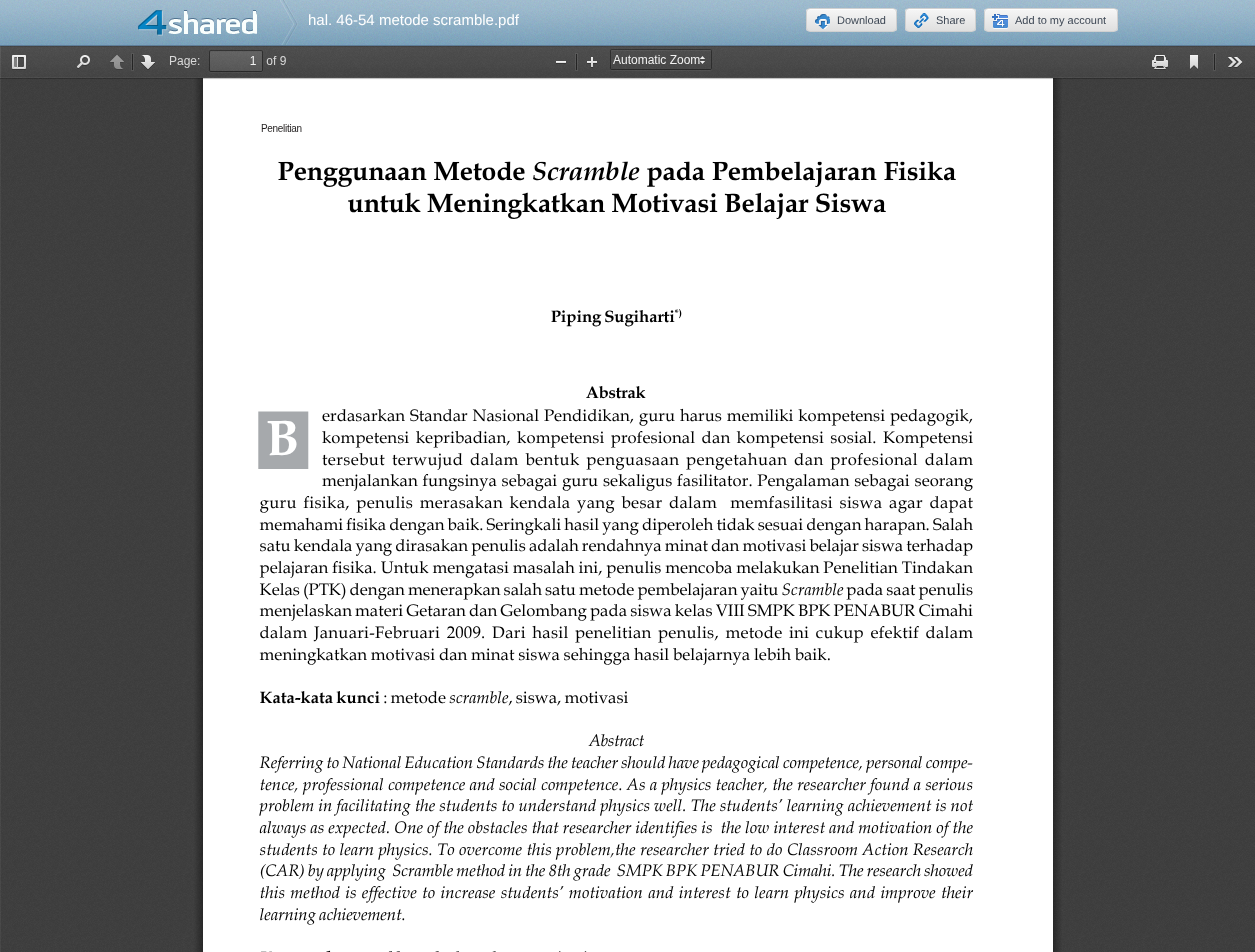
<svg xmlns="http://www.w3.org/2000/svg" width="1255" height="952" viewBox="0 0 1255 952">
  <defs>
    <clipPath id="clip1"><rect x="806" y="8" width="91" height="24" rx="4"/></clipPath>
    <linearGradient id="g1" gradientUnits="userSpaceOnUse" x1="852" y1="9" x2="852" y2="31"><stop offset="0" stop-color="#f6f6f6"/><stop offset="1" stop-color="#dfdfdf"/></linearGradient>
    <clipPath id="clip2"><rect x="905" y="8" width="71" height="24" rx="4"/></clipPath>
    <linearGradient id="g2" gradientUnits="userSpaceOnUse" x1="941" y1="9" x2="941" y2="31"><stop offset="0" stop-color="#f6f6f6"/><stop offset="1" stop-color="#dfdfdf"/></linearGradient>
    <clipPath id="clip3"><rect x="984" y="8" width="134" height="24" rx="4"/></clipPath>
    <linearGradient id="g3" gradientUnits="userSpaceOnUse" x1="1051" y1="9" x2="1051" y2="31"><stop offset="0" stop-color="#f6f6f6"/><stop offset="1" stop-color="#dfdfdf"/></linearGradient>
  </defs>
  <rect width="100%" height="100%" fill="#fff"/>
  <image x="0" y="0" width="1255" height="45" href="img/1.png"/>
  <path d="M0 45h1255v1H0z" fill="#5e7d99"/>
  <image x="138" y="0" width="160" height="45" href="img/2.png"/>
  <g clip-path="url(#clip1)">
    <path d="M806 9h91v22H806z" fill="url(#g1)"/>
  </g>
  <path d="M810 10H893C895 10 896 11 896 13C896 5 883 9 879 9H824C820 9 807 5 807 13C807 11 808 10 810 10Z" fill="#ffffffb3"/>
  <rect x="806.5" y="8.5" width="90" height="23" rx="3.5" fill="none" stroke="#d0d0d0"/>
  <image x="815" y="14" width="15" height="15" href="img/3.png"/>
  <g clip-path="url(#clip2)">
    <path d="M905 9h71v22H905z" fill="url(#g2)"/>
  </g>
  <path d="M909 10H972C974 10 975 11 975 13C975 6 966 9 962 9H920C915 9 906 6 906 13C906 11 907 10 909 10Z" fill="#ffffffb3"/>
  <rect x="905.5" y="8.5" width="70" height="23" rx="3.5" fill="none" stroke="#d0d0d0"/>
  <image x="914" y="13" width="15" height="15" href="img/4.png"/>
  <g clip-path="url(#clip3)">
    <path d="M984 9h134v22H984z" fill="url(#g3)"/>
  </g>
  <path d="M988 10H1114C1116 10 1117 11 1117 13C1117 11 1117 9 1115 9H987C985 9 985 11 985 13C985 11 986 10 988 10Z" fill="#fcfcfc"/>
  <rect x="984.5" y="8.5" width="133" height="23" rx="3.5" fill="none" stroke="#d0d0d0"/>
  <image x="992" y="14" width="16" height="15" href="img/5.png"/>
  <image x="0" y="46" width="1255" height="906" href="img/6.png"/>
  <text x="308" y="25" font-family="Liberation Sans" font-size="15" fill="#fff">hal. 46-54 metode scramble.pdf</text>
  <g font-family="Liberation Sans" font-size="11" fill="#3e4855">
    <text x="837" y="24">Download</text>
    <text x="936" y="24">Share</text>
    <text x="1015" y="24">Add to my account</text>
  </g>
</svg>
